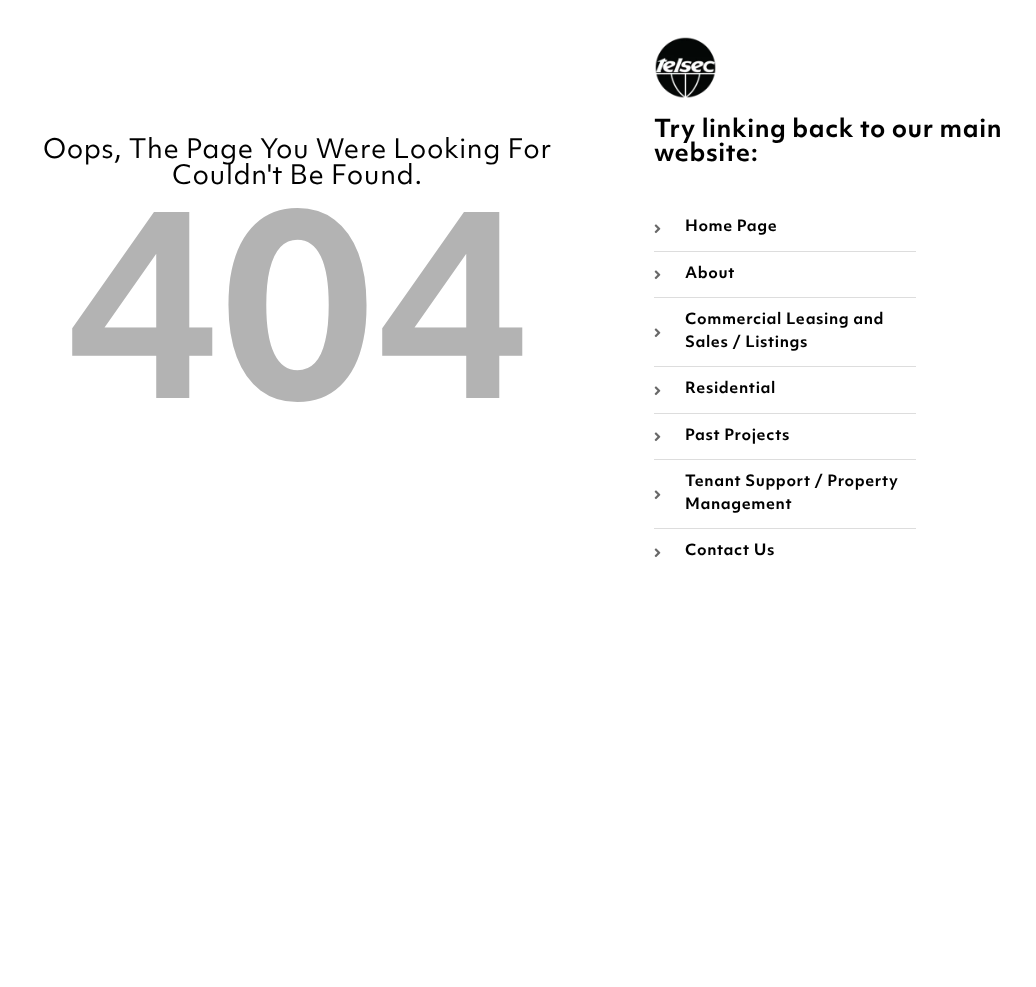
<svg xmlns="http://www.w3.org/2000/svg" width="1036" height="987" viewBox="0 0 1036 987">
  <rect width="100%" height="100%" fill="#fff"/>
  <image x="655" y="37" width="61" height="61" href="img/1.png"/>
  <image x="654" y="224" width="7" height="10" href="img/2.png"/>
  <path d="M654 251h262v1H654z" fill="#ddd"/>
  <image x="654" y="270" width="7" height="10" href="img/2.png"/>
  <path d="M654 297h262v1H654z" fill="#ddd"/>
  <image x="654" y="328" width="7" height="10" href="img/2.png"/>
  <path d="M654 366h262v1H654z" fill="#ddd"/>
  <image x="654" y="386" width="7" height="10" href="img/2.png"/>
  <path d="M654 413h262v1H654z" fill="#ddd"/>
  <image x="654" y="432" width="7" height="10" href="img/2.png"/>
  <path d="M654 459h262v1H654z" fill="#ddd"/>
  <image x="654" y="490" width="7" height="10" href="img/2.png"/>
  <path d="M654 528h262v1H654z" fill="#ddd"/>
  <image x="654" y="548" width="7" height="10" href="img/2.png"/>
  <g font-family="'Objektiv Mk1'" font-size="26" letter-spacing="0.6" fill="#000">
    <text x="43" y="158">Oops, The Page You Were Looking For</text>
    <text x="172" y="184">Couldn't Be Found.</text>
  </g>
  <text x="65" y="398" font-family="'Objektiv Mk1'" font-size="250" font-weight="bold" fill="#b3b3b3">404</text>
  <g font-family="'Objektiv Mk1'" font-size="24" font-weight="bold" letter-spacing="0.6" fill="#000">
    <text x="654" y="137">Try linking back to our main</text>
    <text x="654" y="161">website:</text>
  </g>
  <g font-family="'Objektiv Mk1'" font-size="15" font-weight="bold" letter-spacing="0.6" fill="#000">
    <text x="685" y="231">Home Page</text>
    <text x="685" y="278">About</text>
    <text x="685" y="324">Commercial Leasing and</text>
    <text x="685" y="347">Sales / Listings</text>
    <text x="685" y="393">Residential</text>
    <text x="685" y="440">Past Projects</text>
    <text x="685" y="486">Tenant Support / Property</text>
    <text x="685" y="509">Management</text>
    <text x="685" y="555">Contact Us</text>
  </g>
</svg>
